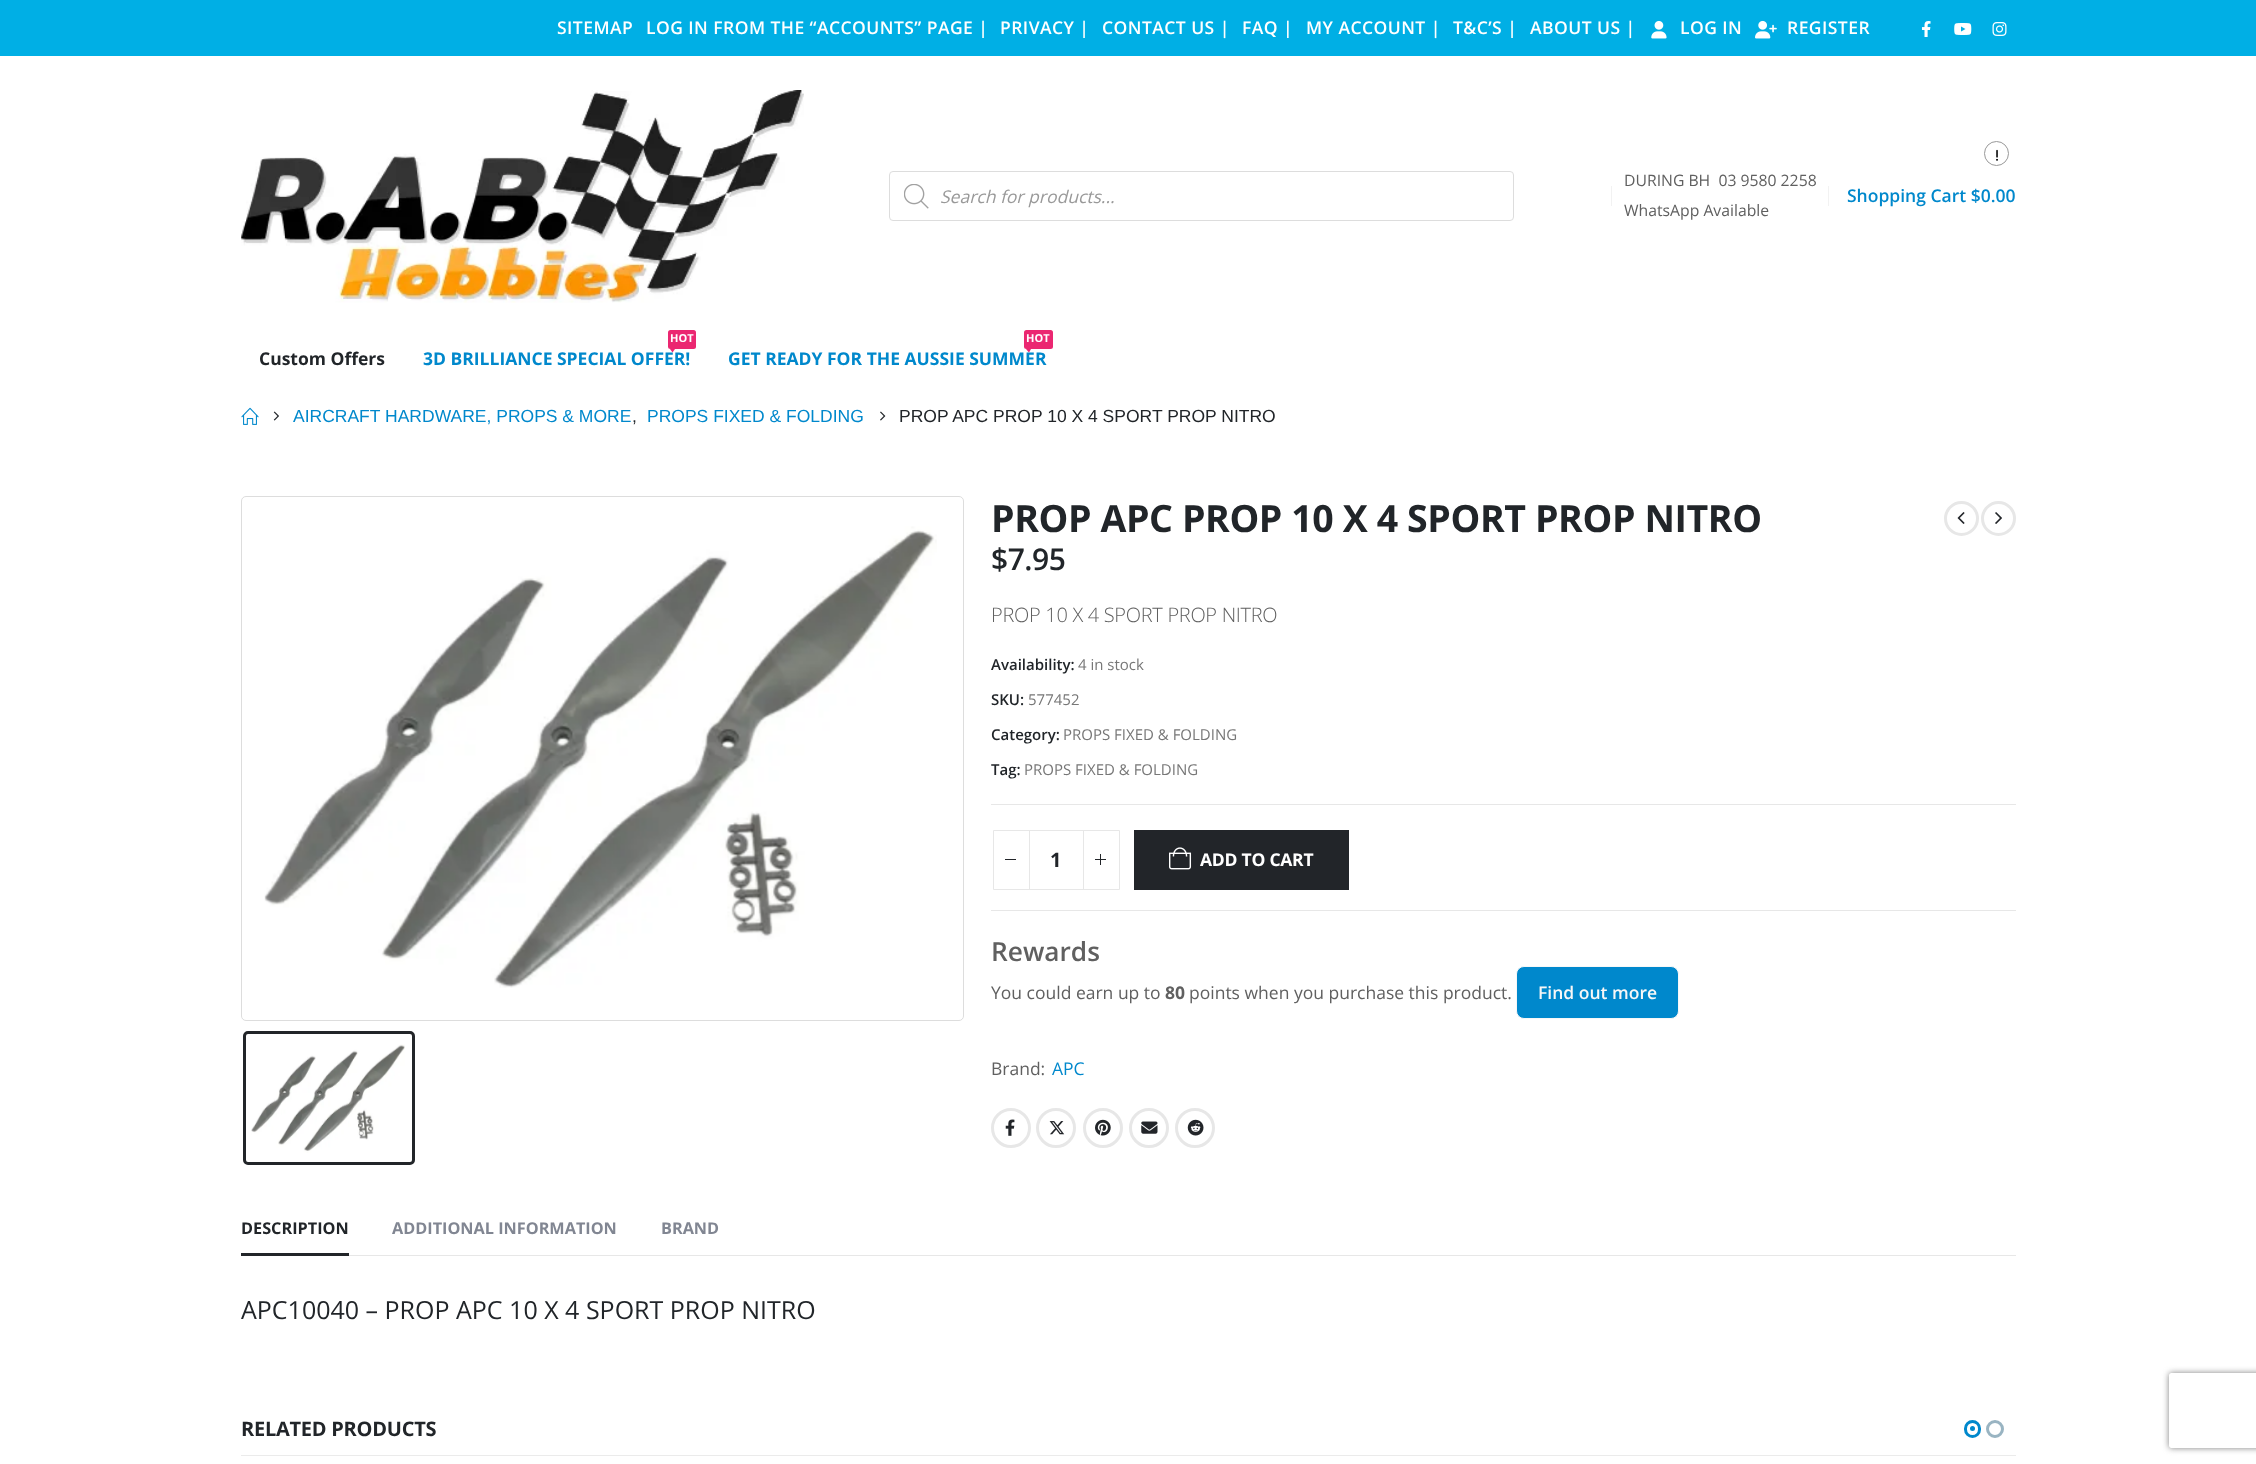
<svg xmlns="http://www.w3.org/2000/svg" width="2256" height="1464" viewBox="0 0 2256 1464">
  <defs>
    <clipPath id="clip1"><path d="M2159 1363H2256V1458H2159ZM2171.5 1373H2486.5C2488 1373 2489 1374 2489 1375.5V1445.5C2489 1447 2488 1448 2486.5 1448H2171.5C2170 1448 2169 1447 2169 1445.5V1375.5C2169 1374 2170 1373 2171.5 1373Z" clip-rule="evenodd"/></clipPath>
  </defs>
  <rect width="100%" height="100%" fill="#fff"/>
  <path d="M0 0h2256v56H0z" fill="#00afe5"/>
  <image x="1651" y="20" width="16" height="19" href="img/1.png"/>
  <image x="1755" y="20" width="22" height="19" href="img/2.png"/>
  <image x="1921" y="21" width="10" height="16" href="img/3.png"/>
  <image x="1954" y="23" width="18" height="12" href="img/4.png"/>
  <image x="1992" y="22" width="15" height="14" href="img/5.png"/>
  <image x="241" y="90" width="563" height="213" href="img/6.png"/>
  <rect x="889.5" y="171.5" width="624" height="49" rx="3.5" fill="none" stroke="#ddd"/>
  <image x="904" y="184" width="25" height="25" href="img/7.png"/>
  <circle cx="1996.5" cy="153.5" r="12" fill="none" stroke="#999"/>
  <image x="1996" y="149" width="2" height="12" href="img/8.png"/>
  <path d="M1611 186h1v20H1611z" fill="#f2f2f2"/>
  <path d="M1828 186h1v20H1828z" fill="#f2f2f2"/>
  <rect x="668" y="330" width="28" height="19" rx="2.5" fill="#eb2771"/>
  <rect x="1024" y="330" width="29" height="19" rx="2.5" fill="#eb2771"/>
  <image x="241" y="407" width="18" height="18" href="img/9.png"/>
  <image x="273" y="411" width="6" height="10" href="img/10.png"/>
  <image x="880" y="411" width="6" height="10" href="img/11.png"/>
  <rect x="241.5" y="496.5" width="722" height="524" rx="4.5" fill="none" stroke="#ddd"/>
  <image x="264" y="526" width="673" height="462" href="img/12.png"/>
  <rect x="244.5" y="1032.5" width="169" height="131" rx="3.5" fill="none" stroke="#222529" stroke-width="3"/>
  <image x="251" y="1044" width="154" height="109" href="img/13.png"/>
  <circle cx="1961.5" cy="518.5" r="16" fill="none" stroke="#e7e7e7" stroke-width="3"/>
  <image x="1957" y="512" width="8" height="12" href="img/14.png"/>
  <circle cx="1998.5" cy="518.5" r="16" fill="none" stroke="#e7e7e7" stroke-width="3"/>
  <image x="1995" y="512" width="7" height="12" href="img/15.png"/>
  <path d="M991 804h1025v1H991z" fill="#e7e7e7"/>
  <path d="M991 910h1025v1H991z" fill="#e7e7e7"/>
  <path d="M1029 830h55v1H1029z" fill="#e7e7e7"/>
  <path d="M1029 889h55v1H1029z" fill="#e7e7e7"/>
  <path d="M993.5 830.5h36v59H993.5z" fill="none" stroke="#e7e7e7"/>
  <path d="M1005 859h11v1H1005z" fill="#222529"/>
  <path d="M1083.5 830.5h36v59H1083.5z" fill="none" stroke="#e7e7e7"/>
  <path d="M1095 859h11v1H1095z" fill="#222529"/>
  <path d="M1100 854h1v11H1100z" fill="#222529"/>
  <path d="M1134 830h215v60H1134z" fill="#222529"/>
  <image x="1169" y="847" width="23" height="23" href="img/16.png"/>
  <rect x="1516.5" y="966.5" width="162" height="52" rx="7.5" fill="#08c" stroke="#f7f7f7"/>
  <circle cx="1011" cy="1128" r="18.5" fill="none" stroke="#e7e7e7" stroke-width="3"/>
  <image x="1005" y="1119" width="10" height="17" href="img/17.png"/>
  <circle cx="1056" cy="1128" r="18.5" fill="none" stroke="#e7e7e7" stroke-width="3"/>
  <image x="1049" y="1121" width="16" height="14" href="img/18.png"/>
  <circle cx="1103" cy="1128" r="18.5" fill="none" stroke="#e7e7e7" stroke-width="3"/>
  <image x="1095" y="1119" width="16" height="17" href="img/19.png"/>
  <circle cx="1149" cy="1128" r="18.5" fill="none" stroke="#e7e7e7" stroke-width="3"/>
  <image x="1141" y="1121" width="17" height="13" href="img/20.png"/>
  <circle cx="1195" cy="1128" r="18.5" fill="none" stroke="#e7e7e7" stroke-width="3"/>
  <image x="1187" y="1119" width="17" height="17" href="img/21.png"/>
  <path d="M241 1253h108v3H241z" fill="#222529"/>
  <path d="M349 1255h1667v1H349z" fill="#e7e7e7"/>
  <path d="M241 1455h1775v1H241z" fill="#ebebeb"/>
  <rect x="1965.5" y="1421.5" width="14" height="15" rx="7" fill="none" stroke="#08c" stroke-width="3"/>
  <circle cx="1972.5" cy="1428.5" r="2.5" fill="#08c"/>
  <circle cx="1995" cy="1429" r="7.5" fill="none" stroke="#99b4c2" stroke-width="3"/>
  <g clip-path="url(#clip1)">
    <rect x="2169" y="1373" width="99" height="75" rx="2.5" fill="#808080" filter="blur(3px)"/>
  </g>
  <g font-family="Open Sans" font-size="17.5" font-weight="600" letter-spacing="0.45" fill="#fff">
    <text x="557" y="34">SITEMAP</text>
    <text x="646" y="34">LOG IN FROM THE “ACCOUNTS” PAGE |</text>
    <text x="1000" y="34">PRIVACY |</text>
    <text x="1102" y="34">CONTACT US |</text>
    <text x="1242" y="34">FAQ |</text>
    <text x="1306" y="34">MY ACCOUNT |</text>
    <text x="1453" y="34">T&amp;C’S |</text>
    <text x="1530" y="34">ABOUT US |</text>
    <text x="1680" y="34">LOG IN</text>
    <text x="1787" y="34">REGISTER</text>
  </g>
  <text x="940" y="203" font-family="Open Sans" font-size="17.5" font-style="italic" fill="#999">Search for products...</text>
  <g font-family="Open Sans" font-size="15.75" fill="#606060">
    <text x="1624" y="186" xml:space="preserve">DURING BH  03 9580 2258</text>
    <text x="1624" y="216">WhatsApp Available</text>
  </g>
  <text x="1847" y="202" font-family="Open Sans" font-size="17.5" font-weight="600" fill="#08c">Shopping Cart $0.00</text>
  <text x="259" y="365" font-family="Open Sans" font-size="17.5" font-weight="bold" fill="#212529">Custom Offers</text>
  <text x="670" y="342" font-family="Open Sans" font-size="11" font-weight="bold" fill="#fff">HOT</text>
  <text x="423" y="365" font-family="Open Sans" font-size="17.5" font-weight="bold" fill="#08c">3D BRILLIANCE SPECIAL OFFER!</text>
  <path d="M670 349H675L672.5 352.5Z" fill="#eb2771"/>
  <text x="1026" y="342" font-family="Open Sans" font-size="11" font-weight="bold" fill="#fff">HOT</text>
  <text x="728" y="365" font-family="Open Sans" font-size="17.5" font-weight="bold" fill="#08c">GET READY FOR THE AUSSIE SUMMER</text>
  <path d="M1026 349H1031L1029 352.5Z" fill="#eb2771"/>
  <g font-family="Liberation Sans" font-size="17.5" fill="#08c">
    <text x="293" y="422">AIRCRAFT HARDWARE, PROPS &amp; MORE</text>
    <text x="647" y="422">PROPS FIXED &amp; FOLDING</text>
  </g>
  <g font-family="Liberation Sans" font-size="17.5" fill="#212529">
    <text x="632" y="422">,</text>
    <text x="899" y="422">PROP APC PROP 10 X 4 SPORT PROP NITRO</text>
  </g>
  <text x="991" y="532" font-family="Open Sans" font-size="37.5" font-weight="bold" letter-spacing="-0.4" fill="#212529">PROP APC PROP 10 X 4 SPORT PROP NITRO</text>
  <text x="991" y="570" font-family="Open Sans" font-size="30" font-weight="600" letter-spacing="-0.5" fill="#212529">$7.95</text>
  <text x="991" y="622" font-family="Open Sans" font-size="20" font-weight="300" letter-spacing="-0.3" fill="#606060">PROP 10 X 4 SPORT PROP NITRO</text>
  <text x="991" y="670" font-family="Open Sans" font-size="15" font-weight="600" fill="#212529">Availability:</text>
  <text x="1078" y="670" font-family="Open Sans" font-size="15" fill="#777">4 in stock</text>
  <text x="991" y="705" font-family="Open Sans" font-size="15" font-weight="600" fill="#212529">SKU:</text>
  <text x="1028" y="705" font-family="Open Sans" font-size="15" fill="#777">577452</text>
  <text x="991" y="740" font-family="Open Sans" font-size="15" font-weight="600" fill="#212529">Category:</text>
  <text x="1063" y="740" font-family="Open Sans" font-size="15" fill="#777">PROPS FIXED &amp; FOLDING</text>
  <text x="991" y="775" font-family="Open Sans" font-size="15" font-weight="600" fill="#212529">Tag:</text>
  <text x="1024" y="775" font-family="Open Sans" font-size="15" fill="#777">PROPS FIXED &amp; FOLDING</text>
  <text x="1050" y="867" font-family="Open Sans" font-size="20" font-weight="bold" fill="#212529">1</text>
  <text x="1200" y="866" font-family="Open Sans" font-size="17.5" font-weight="bold" letter-spacing="-0.25" fill="#fff">ADD TO CART</text>
  <text x="991" y="961" font-family="Open Sans" font-size="26.25" font-weight="600" fill="#606060">Rewards</text>
  <text x="991" y="999" font-family="Open Sans" font-size="17.5" fill="#606060">You could earn up to</text>
  <text x="1165" y="999" font-family="Open Sans" font-size="17.5" font-weight="bold" fill="#606060">80</text>
  <text x="1189" y="999" font-family="Open Sans" font-size="17.5" fill="#606060">points when you purchase this product.</text>
  <text x="1538" y="999" font-family="Open Sans" font-size="17.5" font-weight="600" fill="#f7f7f7">Find out more</text>
  <text x="991" y="1075" font-family="Open Sans" font-size="17.5" fill="#606060">Brand:</text>
  <text x="1052" y="1075" font-family="Open Sans" font-size="17.5" fill="#08c">APC</text>
  <text x="241" y="1234" font-family="Open Sans" font-size="16.25" font-weight="bold" fill="#212529">DESCRIPTION</text>
  <g font-family="Open Sans" font-size="16.25" font-weight="bold" fill="#818692">
    <text x="392" y="1234">ADDITIONAL INFORMATION</text>
    <text x="661" y="1234">BRAND</text>
  </g>
  <text x="241" y="1319" font-family="Open Sans" font-size="25" fill="#212529">APC10040 – PROP APC 10 X 4 SPORT PROP NITRO</text>
  <text x="241" y="1436" font-family="Open Sans" font-size="20" font-weight="bold" letter-spacing="-0.25" fill="#212529">RELATED PRODUCTS</text>
</svg>
